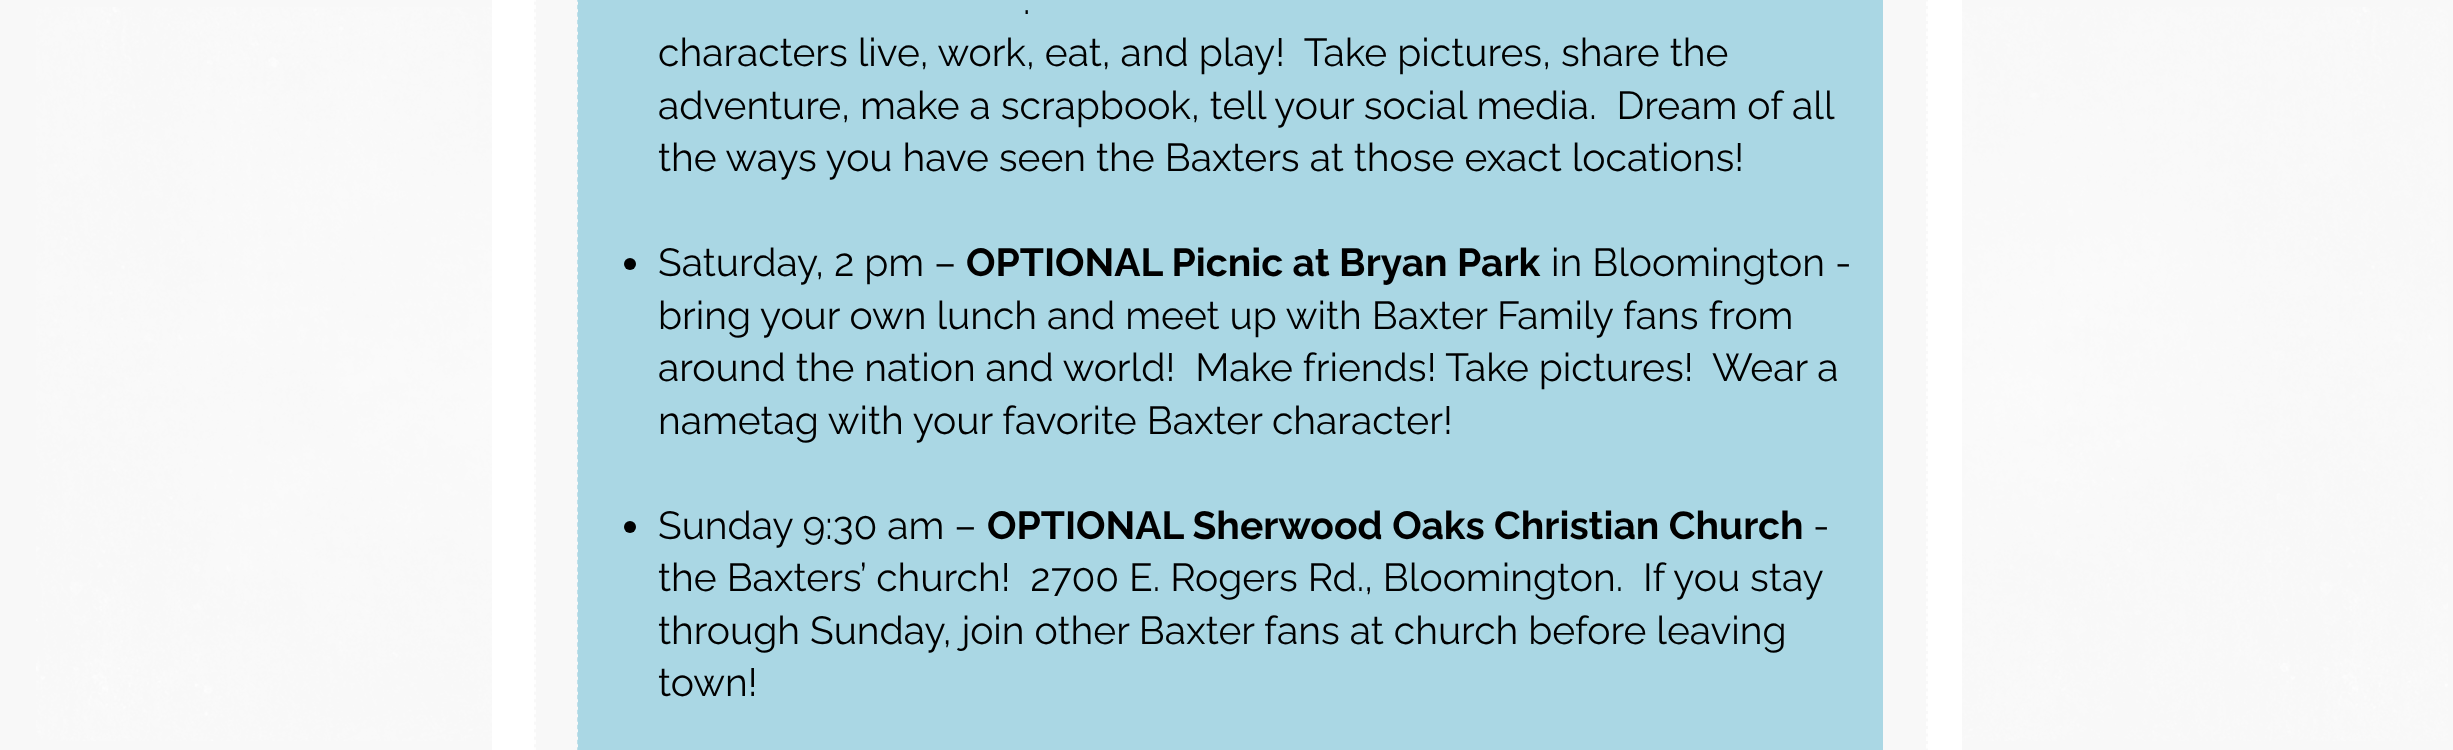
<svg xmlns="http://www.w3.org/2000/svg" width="2453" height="750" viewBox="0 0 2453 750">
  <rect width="100%" height="100%" fill="#f8f8f8"/>
  <image x="36" y="7" width="2412" height="734" href="img/1.png"/>
  <path d="M492 0h1470v750H492z" fill="#fff"/>
  <path d="M534 0h1394v750H534z" fill="#f8f8f8"/>
  <path d="M541.5-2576H1920C1923.5-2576 1927-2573 1927-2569.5V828C1927 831.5 1923.5 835 1920 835H541.5C538 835 535 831.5 535 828V-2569.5C535-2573 538-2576 541.5-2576Z" fill="none" stroke="#fff" stroke-width="1.5" stroke-dasharray="4.5 3"/>
  <path d="M578 0h1305v750H578z" fill="#aad7e4"/>
  <path d="M585-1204H1875C1878.5-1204 1882-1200.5 1882-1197V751.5C1882 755 1878.5 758 1875 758H585C581.5 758 578 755 578 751.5V-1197C578-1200.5 581.5-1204 585-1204Z" fill="none" stroke="#aad7e4" stroke-width="1.5" stroke-dasharray="4.5 3"/>
  <circle cx="630" cy="264" r="6" fill="#000"/>
  <circle cx="630" cy="527" r="6" fill="#000"/>
  <g font-family="Raleway" font-size="39" fill="#000">
    <text x="1023" y="14">.</text>
    <text x="658" y="66" xml:space="preserve">characters live, work, eat, and play!  Take pictures, share the</text>
    <text x="658" y="119" xml:space="preserve">adventure, make a scrapbook, tell your social media.  Dream of all</text>
    <text x="658" y="171">the ways you have seen the Baxters at those exact locations!</text>
    <text x="658" y="276">Saturday, 2 pm –</text>
  </g>
  <text x="966" y="276" font-family="Raleway" font-size="39" font-weight="bold" fill="#000">OPTIONAL Picnic at Bryan Park</text>
  <g font-family="Raleway" font-size="39" fill="#000">
    <text x="1551" y="276">in Bloomington -</text>
    <text x="658" y="329">bring your own lunch and meet up with Baxter Family fans from</text>
    <text x="658" y="381" xml:space="preserve">around the nation and world!  Make friends! Take pictures!  Wear a</text>
    <text x="658" y="434">nametag with your favorite Baxter character!</text>
    <text x="658" y="539">Sunday 9:30 am –</text>
  </g>
  <text x="987" y="539" font-family="Raleway" font-size="39" font-weight="bold" fill="#000">OPTIONAL Sherwood Oaks Christian Church</text>
  <g font-family="Raleway" font-size="39" fill="#000">
    <text x="1813" y="539">-</text>
    <text x="658" y="591" xml:space="preserve">the Baxters’ church!  2700 E. Rogers Rd., Bloomington.  If you stay</text>
    <text x="658" y="644">through Sunday, join other Baxter fans at church before leaving</text>
    <text x="658" y="696">town!</text>
  </g>
</svg>
